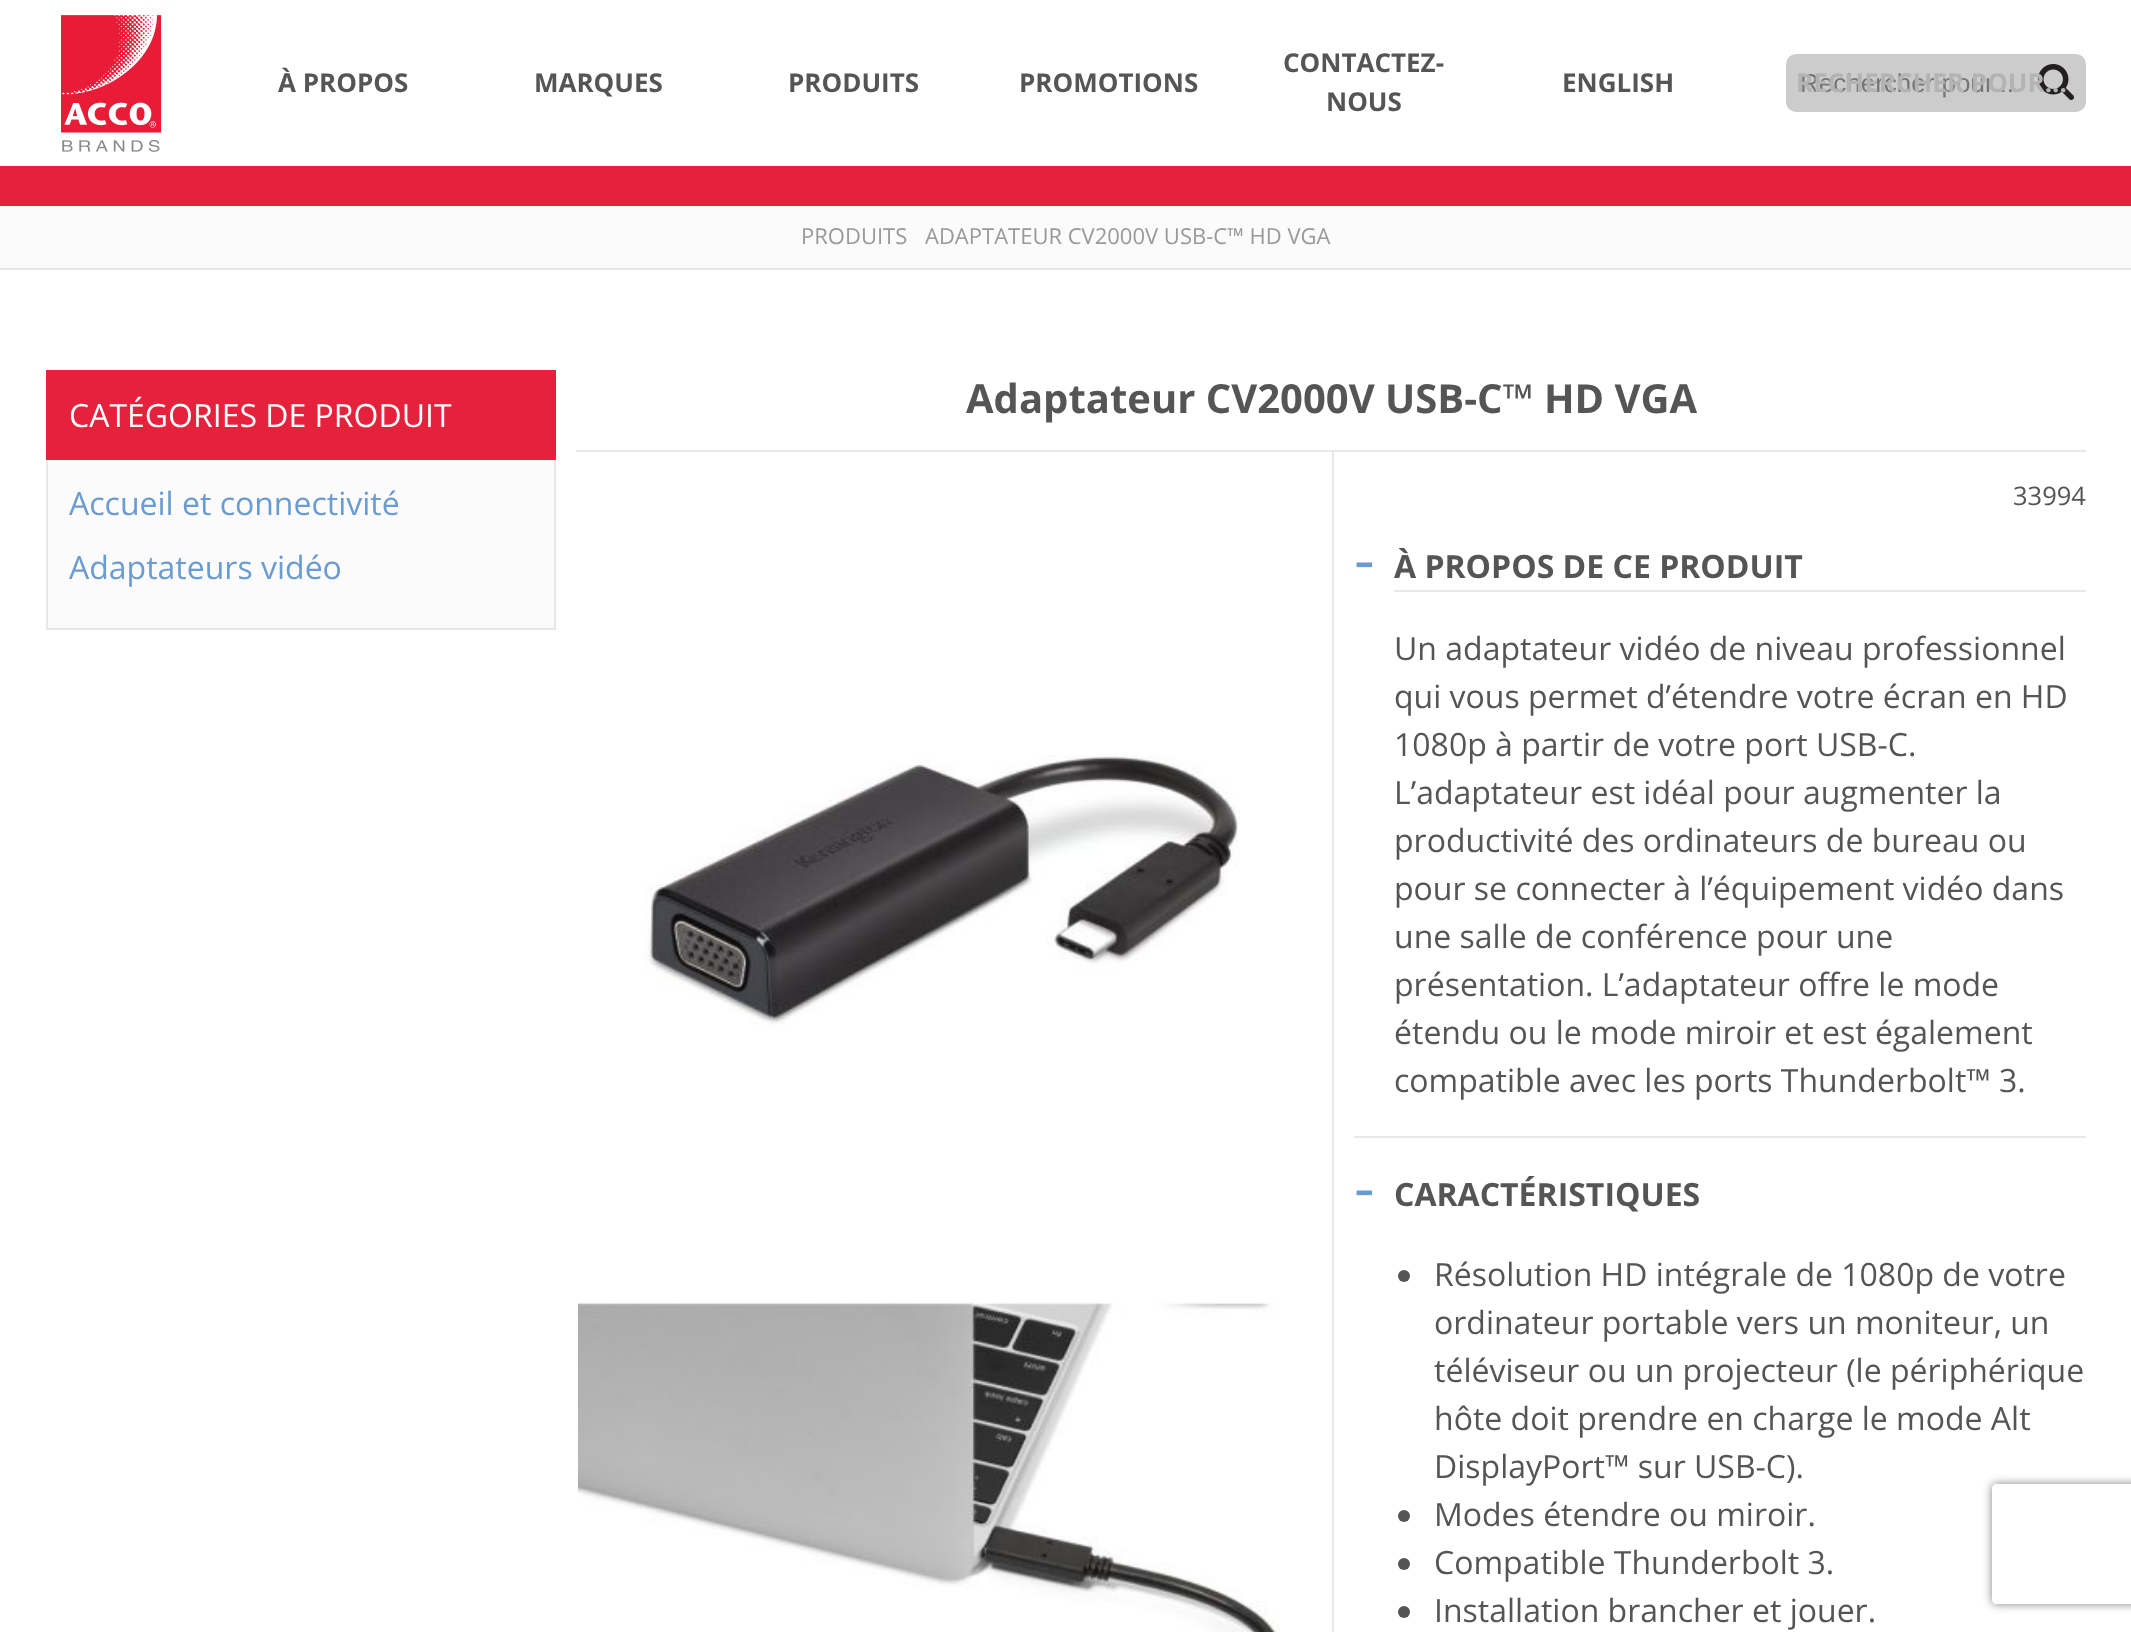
<svg xmlns="http://www.w3.org/2000/svg" width="2131" height="1632" viewBox="0 0 2131 1632">
  <defs>
    <clipPath id="clip1"><path d="M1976 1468H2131V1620H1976ZM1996 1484H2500C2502 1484 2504 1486 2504 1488V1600C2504 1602 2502 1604 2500 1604H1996C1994 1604 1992 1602 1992 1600V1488C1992 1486 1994 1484 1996 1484Z" clip-rule="evenodd"/></clipPath>
  </defs>
  <rect width="100%" height="100%" fill="#fff"/>
  <path d="M0 166h2131v40H0z" fill="#e5213c"/>
  <image x="61" y="15" width="101" height="137" href="img/1.png"/>
  <rect x="1786" y="54" width="300" height="58" rx="10" fill="#ccc"/>
  <image x="2038" y="64" width="36" height="36" href="img/2.png"/>
  <path d="M0 206h2131v62H0z" fill="#fbfbfb"/>
  <path d="M0 268h2131v2H0z" fill="#e6e7e9"/>
  <path d="M48 460h506v168H48z" fill="#fbfbfb"/>
  <path d="M47 371h508v258H47z" fill="none" stroke="#e6e7e9" stroke-width="2"/>
  <path d="M46 370h510v90H46z" fill="#e5213c"/>
  <path d="M576 450h1510v2H576z" fill="#e6e7e9"/>
  <image x="643" y="754" width="597" height="271" href="img/3.png"/>
  <image x="578" y="1302" width="702" height="330" href="img/4.png"/>
  <path d="M1332 452h2v1180H1332z" fill="#e6e7e9"/>
  <path d="M1394 590h692v2H1394z" fill="#e6e7e9"/>
  <path d="M1354 1136h732v2H1354z" fill="#e6e7e9"/>
  <circle cx="1404" cy="1276" r="6" fill="#555"/>
  <circle cx="1404" cy="1516" r="6" fill="#555"/>
  <circle cx="1404" cy="1564" r="6" fill="#555"/>
  <circle cx="1404" cy="1612" r="6" fill="#555"/>
  <g clip-path="url(#clip1)">
    <rect x="1992" y="1484" width="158" height="120" rx="4" fill="#808080" filter="blur(5px)"/>
  </g>
  <g font-family="Open Sans" font-size="26" font-weight="bold" fill="#555">
    <text x="278" y="92">À PROPOS</text>
    <text x="534" y="92">MARQUES</text>
    <text x="788" y="92">PRODUITS</text>
    <text x="1019" y="92">PROMOTIONS</text>
    <text x="1283" y="72">CONTACTEZ-</text>
    <text x="1326" y="111">NOUS</text>
    <text x="1562" y="92">ENGLISH</text>
  </g>
  <text x="1800" y="92" font-family="Liberation Sans" font-size="26" fill="#757575">Rechercher pour...</text>
  <text x="1796" y="92" font-family="Open Sans" font-size="26" font-weight="bold" fill="#b3b3b3">RECHERCHER POUR...</text>
  <g font-family="Open Sans" font-size="22" fill="#999">
    <text x="801" y="244">PRODUITS</text>
    <text x="925" y="244">ADAPTATEUR CV2000V USB-C™ HD VGA</text>
  </g>
  <text x="69" y="427" font-family="Open Sans" font-size="32" fill="#fff">CATÉGORIES DE PRODUIT</text>
  <g font-family="Open Sans" font-size="32" fill="#6a9bd1">
    <text x="69" y="515">Accueil et connectivité</text>
    <text x="69" y="579">Adaptateurs vidéo</text>
  </g>
  <text x="966" y="413" font-family="Open Sans" font-size="40" font-weight="bold" fill="#555">Adaptateur CV2000V USB-C™ HD VGA</text>
  <text x="2013" y="505" font-family="Open Sans" font-size="25.5" fill="#555">33994</text>
  <text x="1354" y="582" font-family="Open Sans" font-size="64" fill="#6a9bd1">-</text>
  <text x="1394" y="578" font-family="Open Sans" font-size="32" font-weight="bold" fill="#555">À PROPOS DE CE PRODUIT</text>
  <g font-family="Open Sans" font-size="32" fill="#555">
    <text x="1394" y="660">Un adaptateur vidéo de niveau professionnel</text>
    <text x="1394" y="708">qui vous permet d’étendre votre écran en HD</text>
    <text x="1394" y="756">1080p à partir de votre port USB-C.</text>
    <text x="1394" y="804">L’adaptateur est idéal pour augmenter la</text>
    <text x="1394" y="852">productivité des ordinateurs de bureau ou</text>
    <text x="1394" y="900">pour se connecter à l’équipement vidéo dans</text>
    <text x="1394" y="948">une salle de conférence pour une</text>
    <text x="1394" y="996">présentation. L’adaptateur offre le mode</text>
    <text x="1394" y="1044">étendu ou le mode miroir et est également</text>
    <text x="1394" y="1092">compatible avec les ports Thunderbolt™ 3.</text>
  </g>
  <text x="1354" y="1210" font-family="Open Sans" font-size="64" fill="#6a9bd1">-</text>
  <text x="1394" y="1206" font-family="Open Sans" font-size="32" font-weight="bold" fill="#555">CARACTÉRISTIQUES</text>
  <g font-family="Open Sans" font-size="32" fill="#555">
    <text x="1434" y="1286">Résolution HD intégrale de 1080p de votre</text>
    <text x="1434" y="1334">ordinateur portable vers un moniteur, un</text>
    <text x="1434" y="1382">téléviseur ou un projecteur (le périphérique</text>
    <text x="1434" y="1430">hôte doit prendre en charge le mode Alt</text>
    <text x="1434" y="1478">DisplayPort™ sur USB-C).</text>
    <text x="1434" y="1526">Modes étendre ou miroir.</text>
    <text x="1434" y="1574">Compatible Thunderbolt 3.</text>
    <text x="1434" y="1622">Installation brancher et jouer.</text>
  </g>
</svg>
